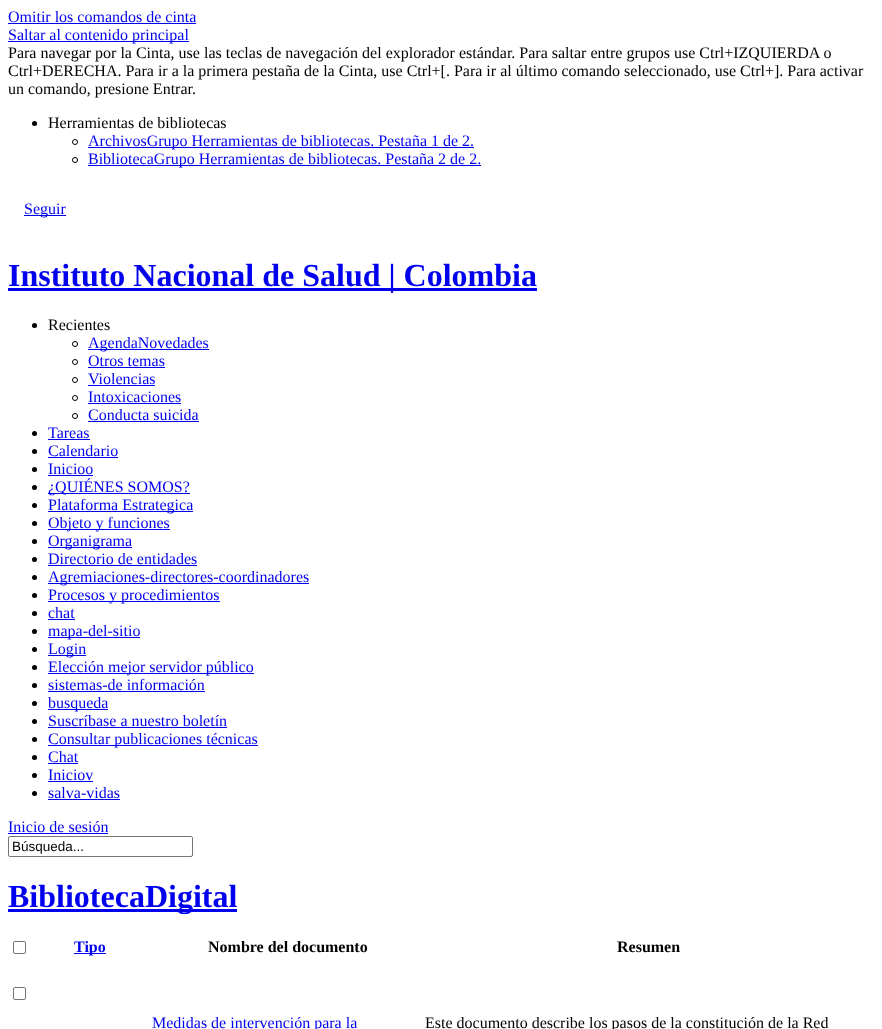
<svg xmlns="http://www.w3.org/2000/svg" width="882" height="1029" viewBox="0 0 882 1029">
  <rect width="100%" height="100%" fill="#fff"/>
  <path d="M8 23h188v1H8z" fill="#00e"/>
  <path d="M8 41h181v1H8z" fill="#00e"/>
  <circle cx="34.5" cy="123.5" r="2.5" fill="#000"/>
  <circle cx="75" cy="142" r="2.5" fill="none" stroke="#000"/>
  <path d="M88 147h386v1H88z" fill="#00e"/>
  <circle cx="75" cy="160" r="2.5" fill="none" stroke="#000"/>
  <path d="M88 165h393v1H88z" fill="#00e"/>
  <path d="M24 215h42v1H24z" fill="#00e"/>
  <path d="M8 288h529v3H8z" fill="#00e"/>
  <circle cx="34.5" cy="325.5" r="2.5" fill="#000"/>
  <circle cx="75" cy="344" r="2.5" fill="none" stroke="#000"/>
  <path d="M88 349h121v1H88z" fill="#00e"/>
  <circle cx="75" cy="362" r="2.5" fill="none" stroke="#000"/>
  <path d="M88 367h77v1H88z" fill="#00e"/>
  <circle cx="75" cy="380" r="2.5" fill="none" stroke="#000"/>
  <path d="M88 385h67v1H88z" fill="#00e"/>
  <circle cx="75" cy="398" r="2.5" fill="none" stroke="#000"/>
  <path d="M88 403h93v1H88z" fill="#00e"/>
  <circle cx="75" cy="416" r="2.5" fill="none" stroke="#000"/>
  <path d="M88 421h111v1H88z" fill="#00e"/>
  <circle cx="34.5" cy="433.5" r="2.5" fill="#000"/>
  <path d="M48 439h42v1H48z" fill="#00e"/>
  <circle cx="34.5" cy="451.5" r="2.5" fill="#000"/>
  <path d="M48 457h70v1H48z" fill="#00e"/>
  <circle cx="34.5" cy="469.5" r="2.5" fill="#000"/>
  <path d="M48 475h45v1H48z" fill="#00e"/>
  <circle cx="34.5" cy="487.5" r="2.5" fill="#000"/>
  <path d="M48 493h142v1H48z" fill="#00e"/>
  <circle cx="34.5" cy="505.5" r="2.5" fill="#000"/>
  <path d="M48 511h145v1H48z" fill="#00e"/>
  <circle cx="34.5" cy="523.5" r="2.5" fill="#000"/>
  <path d="M48 529h122v1H48z" fill="#00e"/>
  <circle cx="34.5" cy="541.5" r="2.5" fill="#000"/>
  <path d="M48 547h84v1H48z" fill="#00e"/>
  <circle cx="34.5" cy="559.5" r="2.5" fill="#000"/>
  <path d="M48 565h149v1H48z" fill="#00e"/>
  <circle cx="34.5" cy="577.5" r="2.5" fill="#000"/>
  <path d="M48 583h261v1H48z" fill="#00e"/>
  <circle cx="34.5" cy="595.5" r="2.5" fill="#000"/>
  <path d="M48 601h172v1H48z" fill="#00e"/>
  <circle cx="34.5" cy="613.5" r="2.5" fill="#000"/>
  <path d="M48 619h27v1H48z" fill="#00e"/>
  <circle cx="34.5" cy="631.5" r="2.5" fill="#000"/>
  <path d="M48 637h92v1H48z" fill="#00e"/>
  <circle cx="34.5" cy="649.5" r="2.5" fill="#000"/>
  <path d="M48 655h38v1H48z" fill="#00e"/>
  <circle cx="34.5" cy="667.5" r="2.5" fill="#000"/>
  <path d="M48 673h206v1H48z" fill="#00e"/>
  <circle cx="34.5" cy="685.5" r="2.5" fill="#000"/>
  <path d="M48 691h157v1H48z" fill="#00e"/>
  <circle cx="34.5" cy="703.5" r="2.5" fill="#000"/>
  <path d="M48 709h60v1H48z" fill="#00e"/>
  <circle cx="34.5" cy="721.5" r="2.5" fill="#000"/>
  <path d="M48 727h179v1H48z" fill="#00e"/>
  <circle cx="34.5" cy="739.5" r="2.5" fill="#000"/>
  <path d="M48 745h210v1H48z" fill="#00e"/>
  <circle cx="34.5" cy="757.5" r="2.5" fill="#000"/>
  <path d="M48 763h30v1H48z" fill="#00e"/>
  <circle cx="34.5" cy="775.5" r="2.5" fill="#000"/>
  <path d="M48 781h45v1H48z" fill="#00e"/>
  <circle cx="34.5" cy="793.5" r="2.5" fill="#000"/>
  <path d="M48 799h72v1H48z" fill="#00e"/>
  <path d="M8 833h100v1H8z" fill="#00e"/>
  <rect x="8.5" y="836.5" width="184" height="20" rx="1.5" fill="none" stroke="#767676"/>
  <path d="M8 909h229v3H8z" fill="#00e"/>
  <rect x="13.5" y="941.5" width="12" height="12" rx="1.5" fill="none" stroke="#767676"/>
  <path d="M74 953h32v1H74z" fill="#00e"/>
  <rect x="13.5" y="987.5" width="12" height="12" rx="1.5" fill="none" stroke="#767676"/>
  <g font-family="Liberation Serif" font-size="16" fill="#00e">
    <text x="8" y="22">Omitir los comandos de cinta</text>
    <text x="8" y="40">Saltar al contenido principal</text>
  </g>
  <g font-family="Liberation Serif" font-size="16" fill="#000">
    <text x="8" y="58">Para navegar por la Cinta, use las teclas de navegación del explorador estándar. Para saltar entre grupos use Ctrl+IZQUIERDA o</text>
    <text x="8" y="76">Ctrl+DERECHA. Para ir a la primera pestaña de la Cinta, use Ctrl+[. Para ir al último comando seleccionado, use Ctrl+]. Para activar</text>
    <text x="8" y="94">un comando, presione Entrar.</text>
    <text x="48" y="128">Herramientas de bibliotecas</text>
  </g>
  <g font-family="Liberation Serif" font-size="16" fill="#00e">
    <text x="88" y="146">ArchivosGrupo Herramientas de bibliotecas. Pestaña 1 de 2.</text>
    <text x="88" y="164">BibliotecaGrupo Herramientas de bibliotecas. Pestaña 2 de 2.</text>
    <text x="24" y="214">Seguir</text>
  </g>
  <text x="8" y="286" font-family="Liberation Serif" font-size="32" font-weight="bold" fill="#00e">Instituto Nacional de Salud | Colombia</text>
  <text x="48" y="330" font-family="Liberation Serif" font-size="16" fill="#000">Recientes</text>
  <g font-family="Liberation Serif" font-size="16" fill="#00e">
    <text x="88" y="348">AgendaNovedades</text>
    <text x="88" y="366">Otros temas</text>
    <text x="88" y="384">Violencias</text>
    <text x="88" y="402">Intoxicaciones</text>
    <text x="88" y="420">Conducta suicida</text>
    <text x="48" y="438">Tareas</text>
    <text x="48" y="456">Calendario</text>
    <text x="48" y="474">Inicioo</text>
    <text x="48" y="492">¿QUIÉNES SOMOS?</text>
    <text x="48" y="510">Plataforma Estrategica</text>
    <text x="48" y="528">Objeto y funciones</text>
    <text x="48" y="546">Organigrama</text>
    <text x="48" y="564">Directorio de entidades</text>
    <text x="48" y="582">Agremiaciones-directores-coordinadores</text>
    <text x="48" y="600">Procesos y procedimientos</text>
    <text x="48" y="618">chat</text>
    <text x="48" y="636">mapa-del-sitio</text>
    <text x="48" y="654">Login</text>
    <text x="48" y="672">Elección mejor servidor público</text>
    <text x="48" y="690">sistemas-de información</text>
    <text x="48" y="708">busqueda</text>
    <text x="48" y="726">Suscríbase a nuestro boletín</text>
    <text x="48" y="744">Consultar publicaciones técnicas</text>
    <text x="48" y="762">Chat</text>
    <text x="48" y="780">Iniciov</text>
    <text x="48" y="798">salva-vidas</text>
    <text x="8" y="832">Inicio de sesión</text>
  </g>
  <text x="12" y="851" font-family="Liberation Sans" font-size="13.5" fill="#000">Búsqueda...</text>
  <text x="8" y="907" font-family="Liberation Serif" font-size="32" font-weight="bold" fill="#00e">BibliotecaDigital</text>
  <text x="74" y="952" font-family="Liberation Serif" font-size="16" font-weight="bold" fill="#00e">Tipo</text>
  <g font-family="Liberation Serif" font-size="16" font-weight="bold" fill="#000">
    <text x="208" y="952">Nombre del documento</text>
    <text x="617" y="952">Resumen</text>
  </g>
  <text x="152" y="1028" font-family="Liberation Serif" font-size="16" fill="#00e">Medidas de intervención para la</text>
  <text x="425" y="1028" font-family="Liberation Serif" font-size="16" fill="#000">Este documento describe los pasos de la constitución de la Red</text>
</svg>
